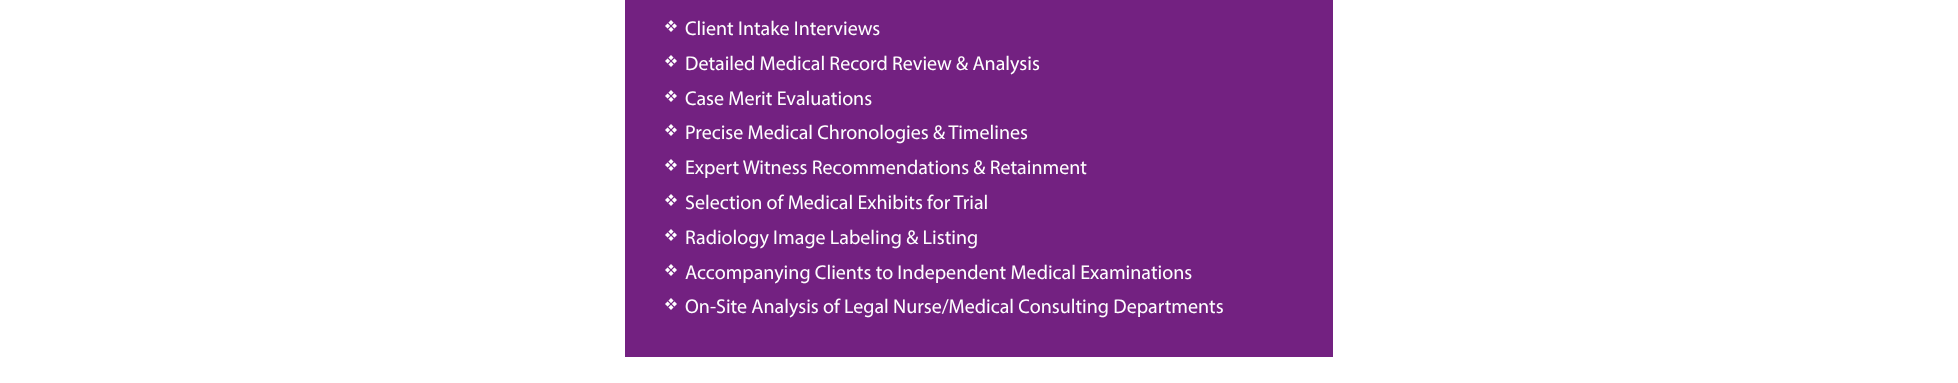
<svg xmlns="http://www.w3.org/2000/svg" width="1958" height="383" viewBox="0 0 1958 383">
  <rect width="100%" height="100%" fill="#fff"/>
  <path d="M625 0h708v357H625z" fill="#732181"/>
  <image x="665" y="20" width="12" height="12" href="img/1.png"/>
  <image x="665" y="55" width="12" height="12" href="img/1.png"/>
  <image x="665" y="90" width="12" height="12" href="img/1.png"/>
  <image x="665" y="124" width="12" height="12" href="img/1.png"/>
  <image x="665" y="159" width="12" height="12" href="img/1.png"/>
  <image x="665" y="194" width="12" height="12" href="img/1.png"/>
  <image x="665" y="229" width="12" height="12" href="img/1.png"/>
  <image x="665" y="264" width="12" height="12" href="img/1.png"/>
  <image x="665" y="298" width="12" height="12" href="img/1.png"/>
  <g font-family="Myriad" font-size="20" fill="#fff">
    <text x="685" y="35">Client Intake Interviews</text>
    <text x="685" y="70">Detailed Medical Record Review &amp; Analysis</text>
    <text x="685" y="105">Case Merit Evaluations</text>
    <text x="685" y="139">Precise Medical Chronologies &amp; Timelines</text>
    <text x="685" y="174">Expert Witness Recommendations &amp; Retainment</text>
    <text x="685" y="209">Selection of Medical Exhibits for Trial</text>
    <text x="685" y="244">Radiology Image Labeling &amp; Listing</text>
    <text x="685" y="279">Accompanying Clients to Independent Medical Examinations</text>
    <text x="685" y="313">On-Site Analysis of Legal Nurse/Medical Consulting Departments</text>
  </g>
</svg>
